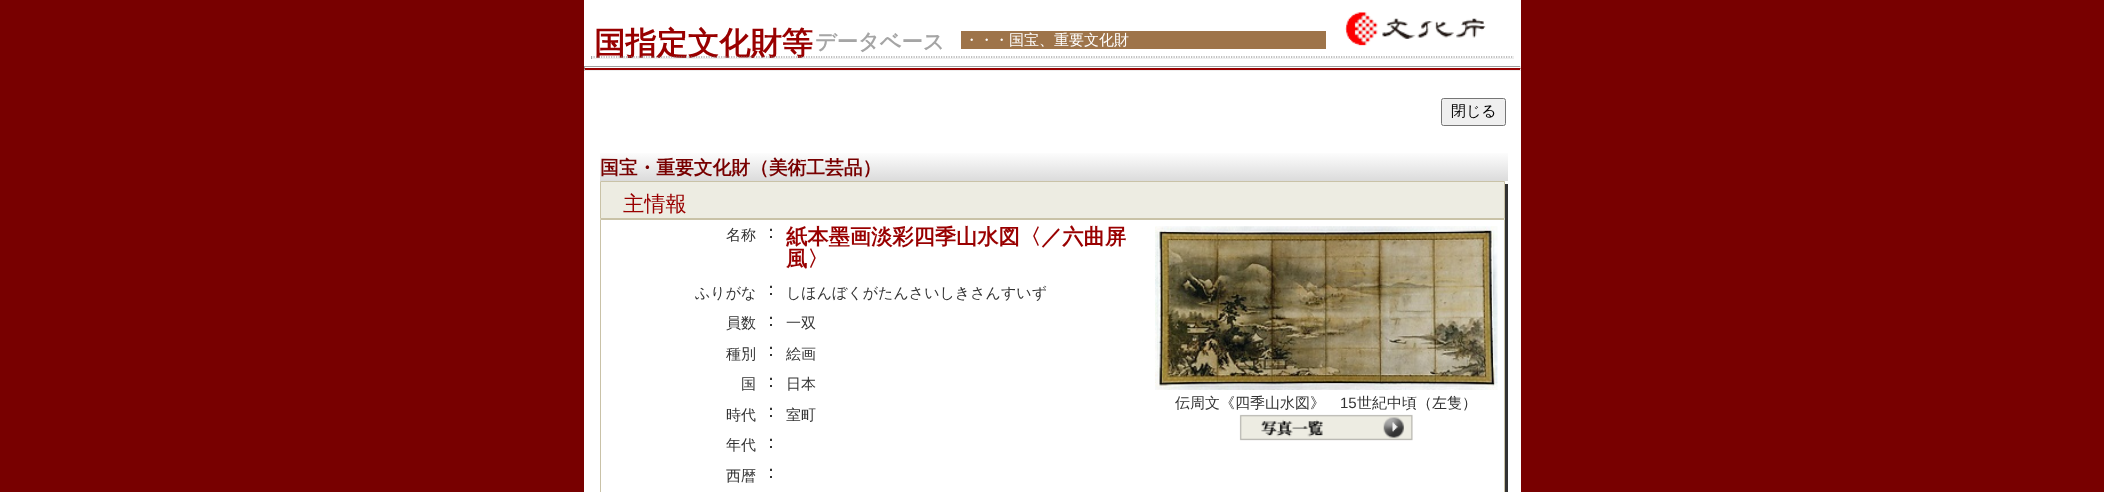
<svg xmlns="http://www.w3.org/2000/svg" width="2104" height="492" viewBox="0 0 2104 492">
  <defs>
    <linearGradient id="g1" gradientUnits="userSpaceOnUse" x1="1054" y1="181" x2="1054" y2="151"><stop offset="0" stop-color="#dbdbdb"/><stop offset="1" stop-color="#fff"/></linearGradient>
  </defs>
  <rect width="100%" height="100%" fill="#780000"/>
  <path d="M584 0h937v492H584z" fill="#fff"/>
  <path d="M961 31h365v18H961z" fill="#9e744a"/>
  <image x="1345" y="12" width="141" height="34" href="img/1.png"/>
  <path d="M584 66h937v1H584z" fill="#9f9f9f"/>
  <path d="M1520 66h1v3H1520z" fill="#eee"/>
  <path d="M584 66h1v3H584z" fill="#9f9f9f"/>
  <path d="M584 68H1521L1520 70H585Z" fill="#900"/>
  <path d="M1521 67.5V71L1520 70Z" fill="#eee"/>
  <path d="M584 70h937v1H584z" fill="#eee"/>
  <path d="M584 71V67.5L585 70Z" fill="#9f9f9f"/>
  <rect x="1441.5" y="98.5" width="64" height="27" rx="2" fill="#efefef" stroke="#767676"/>
  <path d="M600 153h908v28H600z" fill="url(#g1)"/>
  <path d="M603 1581V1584H1508V184H1505V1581Z" fill="#333"/>
  <path d="M600.5 181.5h904v37H600.5z" fill="#edece2" stroke="#c9c2a7"/>
  <path d="M600.5 219.5h904v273H600.5z" fill="none" stroke="#c9c2a7"/>
  <image x="1155" y="226" width="343" height="164" href="img/2.png"/>
  <image x="1239" y="414" width="174" height="27" href="img/3.png"/>
  <text x="594" y="54" font-family="WenQuanYi Zen Hei" font-size="31.25" font-weight="bold" fill="#900">国指定文化財等</text>
  <text x="815" y="49" font-family="WenQuanYi Zen Hei" font-size="21.25" font-weight="bold" fill="#a5a5a5">データベース</text>
  <text x="964" y="45" font-family="WenQuanYi Zen Hei" font-size="15" font-weight="500" fill="#fff">・・・国宝、重要文化財</text>
  <path d="M591 57H1514" fill="none" stroke="#808080" stroke-width="1.2" stroke-dasharray="1.25 1.25"/>
  <path d="M1513 56h1v3H1513z" fill="#eee"/>
  <path d="M591 58h923v1H591z" fill="#eee"/>
  <path d="M591 56h1v3H591z" fill="#9f9f9f"/>
  <text x="1451" y="116" font-family="WenQuanYi Zen Hei" font-size="15" font-weight="500" fill="#000">閉じる</text>
  <text x="600" y="174" font-family="WenQuanYi Zen Hei" font-size="18.75" font-weight="bold" fill="#780000">国宝・重要文化財（美術工芸品）</text>
  <text x="623" y="211" font-family="WenQuanYi Zen Hei" font-size="21.25" font-weight="500" fill="#900">主情報</text>
  <text x="726" y="240" font-family="WenQuanYi Zen Hei" font-size="15" font-weight="500" fill="#333">名称</text>
  <text x="762" y="238" font-family="WenQuanYi Zen Hei" font-size="18" font-weight="500" fill="#333">：</text>
  <g font-family="WenQuanYi Zen Hei" font-size="21.25" font-weight="bold" fill="#900">
    <text x="786" y="244">紙本墨画淡彩四季山水図〈／六曲屏</text>
    <text x="786" y="266">風〉</text>
  </g>
  <text x="695" y="298" font-family="WenQuanYi Zen Hei" font-size="15" font-weight="500" fill="#333">ふりがな</text>
  <text x="762" y="295" font-family="WenQuanYi Zen Hei" font-size="18" font-weight="500" fill="#333">：</text>
  <g font-family="WenQuanYi Zen Hei" font-size="15" font-weight="500" fill="#333">
    <text x="786" y="298">しほんぼくがたんさいしきさんすいず</text>
    <text x="726" y="328">員数</text>
  </g>
  <text x="762" y="326" font-family="WenQuanYi Zen Hei" font-size="18" font-weight="500" fill="#333">：</text>
  <g font-family="WenQuanYi Zen Hei" font-size="15" font-weight="500" fill="#333">
    <text x="786" y="328">一双</text>
    <text x="726" y="359">種別</text>
  </g>
  <text x="762" y="356" font-family="WenQuanYi Zen Hei" font-size="18" font-weight="500" fill="#333">：</text>
  <g font-family="WenQuanYi Zen Hei" font-size="15" font-weight="500" fill="#333">
    <text x="786" y="359">絵画</text>
    <text x="741" y="389">国</text>
  </g>
  <text x="762" y="387" font-family="WenQuanYi Zen Hei" font-size="18" font-weight="500" fill="#333">：</text>
  <g font-family="WenQuanYi Zen Hei" font-size="15" font-weight="500" fill="#333">
    <text x="786" y="389">日本</text>
    <text x="726" y="420">時代</text>
  </g>
  <text x="762" y="417" font-family="WenQuanYi Zen Hei" font-size="18" font-weight="500" fill="#333">：</text>
  <g font-family="WenQuanYi Zen Hei" font-size="15" font-weight="500" fill="#333">
    <text x="786" y="420">室町</text>
    <text x="726" y="450">年代</text>
  </g>
  <text x="762" y="448" font-family="WenQuanYi Zen Hei" font-size="18" font-weight="500" fill="#333">：</text>
  <text x="726" y="481" font-family="WenQuanYi Zen Hei" font-size="15" font-weight="500" fill="#333">西暦</text>
  <text x="762" y="478" font-family="WenQuanYi Zen Hei" font-size="18" font-weight="500" fill="#333">：</text>
  <text x="1175" y="408" font-family="WenQuanYi Zen Hei" font-size="15" font-weight="500" fill="#333">伝周文《四季山水図》</text>
  <text x="1340" y="408" font-family="Liberation Sans" font-size="15" fill="#333">15</text>
  <text x="1357" y="408" font-family="WenQuanYi Zen Hei" font-size="15" font-weight="500" fill="#333">世紀中頃（左隻）</text>
</svg>
